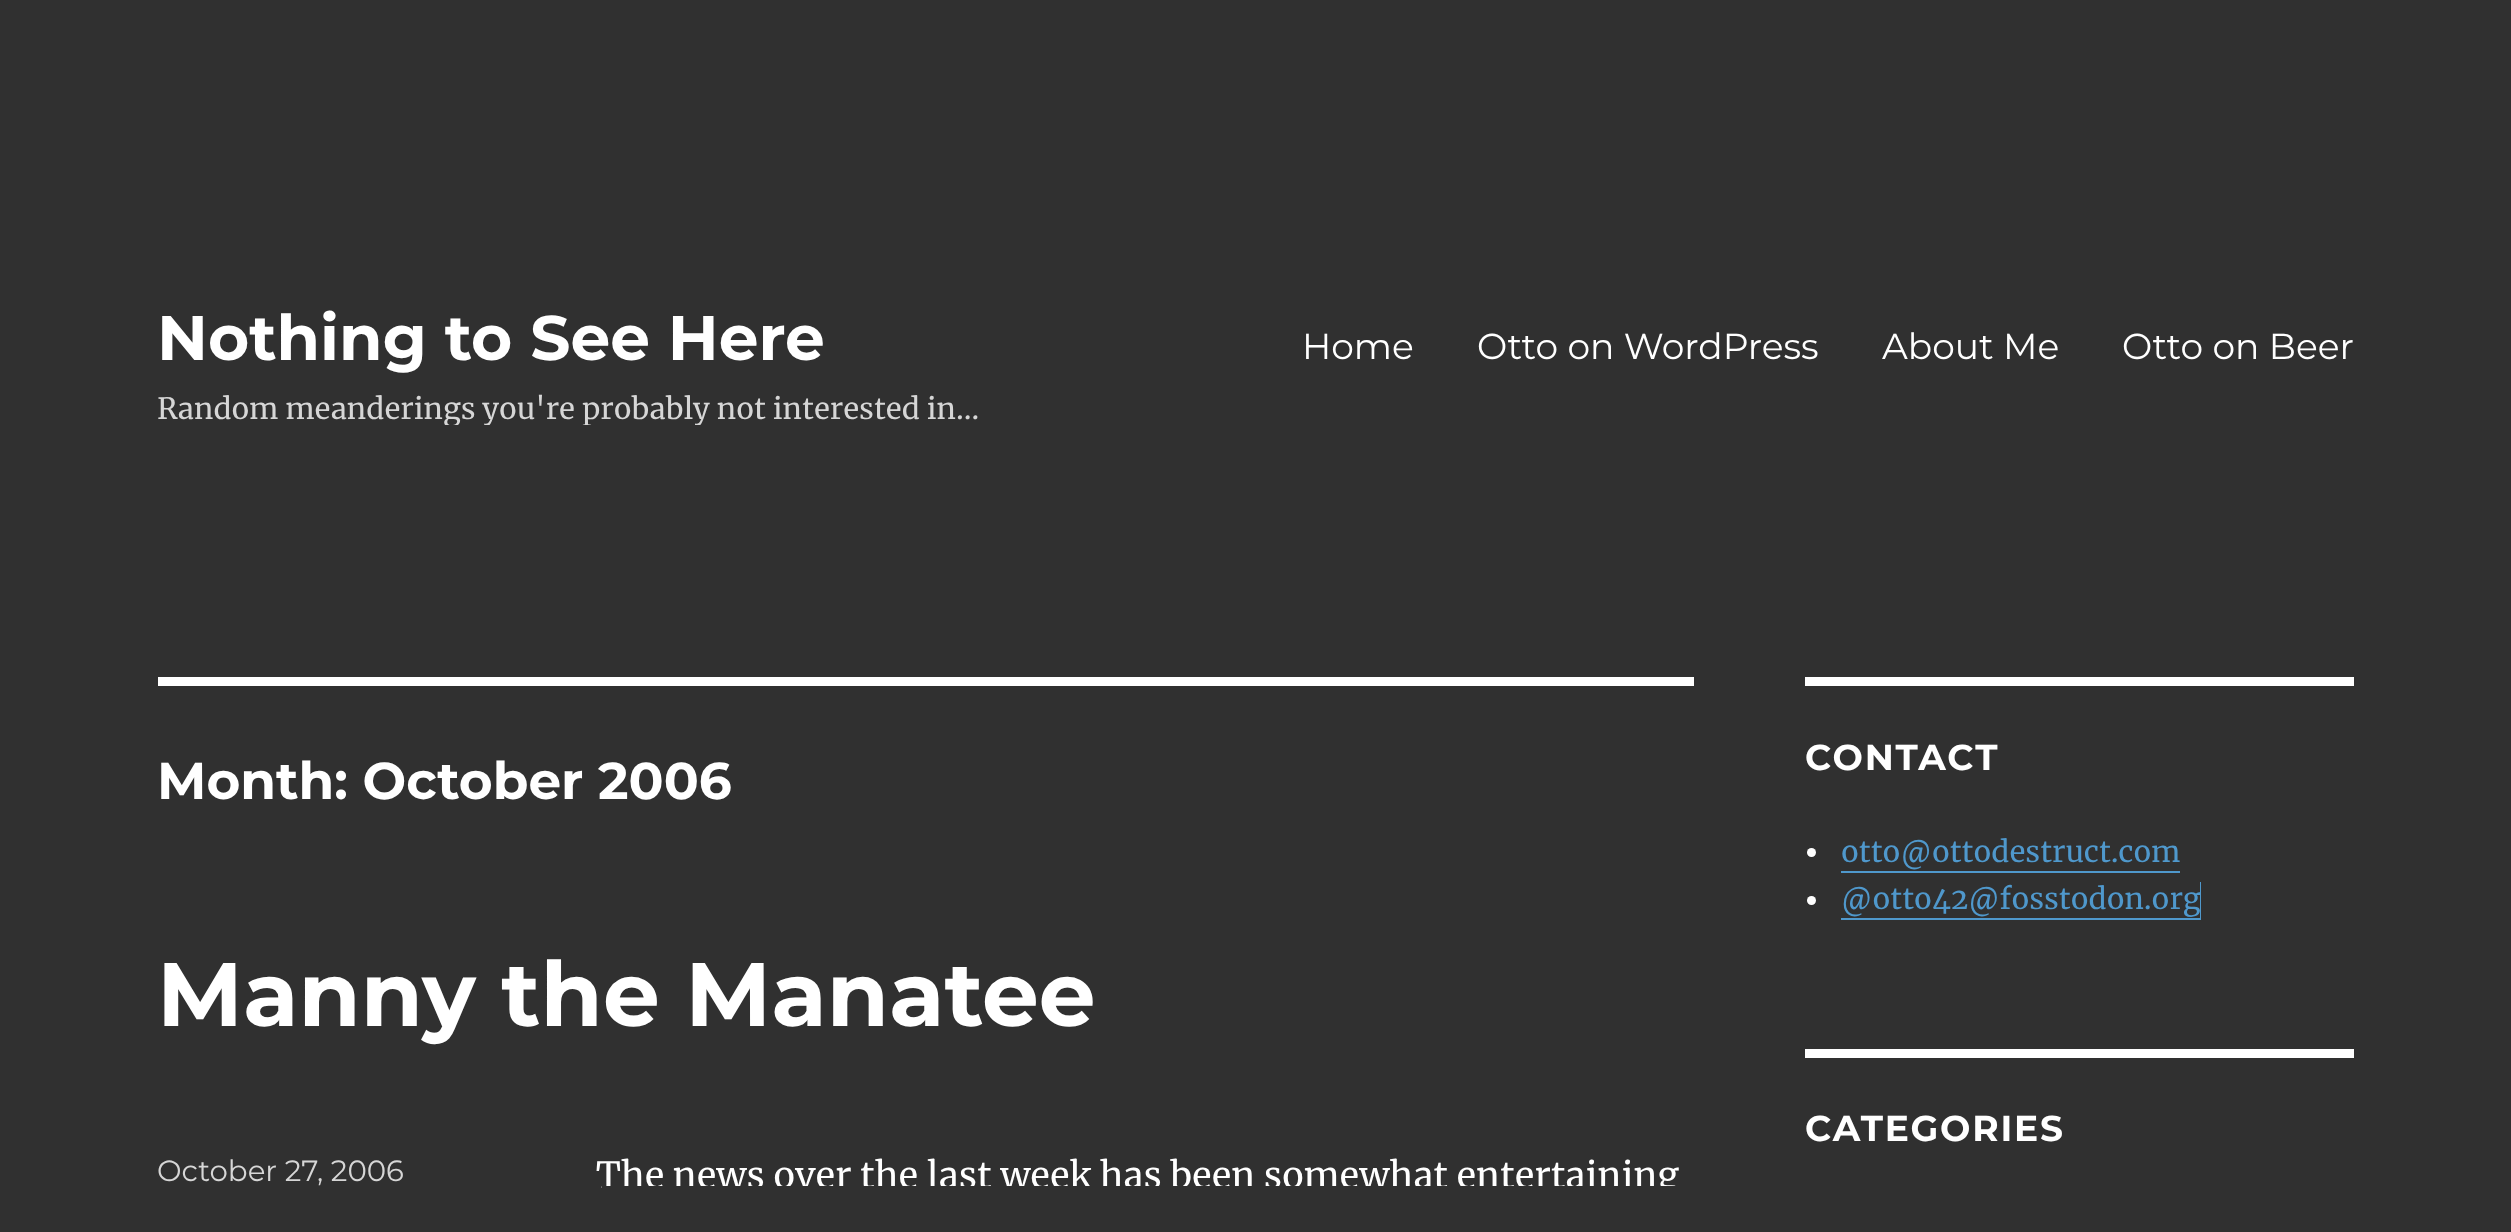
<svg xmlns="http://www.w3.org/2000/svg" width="2511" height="1232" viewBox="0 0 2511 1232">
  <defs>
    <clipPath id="clip1"><path d="M158 299h821v126H158z"/></clipPath>
  </defs>
  <rect width="100%" height="100%" fill="#303030"/>
  <path d="M158 677h1536v9H158z" fill="#fff"/>
  <path d="M1805 677h549v9H1805z" fill="#fff"/>
  <circle cx="1811.5" cy="852.5" r="4.5" fill="#fff"/>
  <path d="M1841 871h339v2H1841z" fill="#4f98cc"/>
  <circle cx="1811.5" cy="900.5" r="4.5" fill="#fff"/>
  <path d="M1841 918V920H2201V882H2200V918Z" fill="#4f98cc"/>
  <path d="M1805 1049h549v9H1805z" fill="#fff"/>
  <text x="157" y="360" font-family="Montserrat" font-size="63" font-weight="100" fill="#fff">Nothing to See Here</text>
  <g clip-path="url(#clip1)">
    <text x="157" y="419" font-family="Merriweather" font-size="29.25" fill="#d6d6d6">Random meanderings you're probably not interested in…</text>
  </g>
  <g font-family="'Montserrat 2'" font-size="36" font-weight="100" fill="#fff">
    <text x="1302" y="359">Home</text>
    <text x="1477" y="359">Otto on WordPress</text>
    <text x="1882" y="359">About Me</text>
    <text x="2122" y="359">Otto on Beer</text>
  </g>
  <text x="157" y="799" font-family="Montserrat" font-size="51.75" font-weight="100" fill="#fff">Month: October 2006</text>
  <text x="157" y="1026" font-family="Montserrat" font-size="90" font-weight="100" fill="#fff">Manny the Manatee</text>
  <text x="157" y="1181" font-family="'Montserrat 2'" font-size="29.25" font-weight="100" fill="#d6d6d6">October 27, 2006</text>
  <text x="596" y="1188" font-family="Merriweather" font-size="36" fill="#fff">The news over the last week has been somewhat entertaining</text>
  <text x="1805" y="770" font-family="Montserrat" font-size="36" font-weight="100" letter-spacing="1.75" fill="#fff">CONTACT</text>
  <g font-family="Merriweather" font-size="29.25" fill="#4f98cc">
    <text x="1841" y="862">otto@ottodestruct.com</text>
    <text x="1841" y="909">@otto42@fosstodon.org</text>
  </g>
  <text x="1805" y="1141" font-family="Montserrat" font-size="36" font-weight="100" letter-spacing="1.75" fill="#fff">CATEGORIES</text>
  <path d="M602 1186h1077v12H602z" fill="#303030"/>
</svg>
